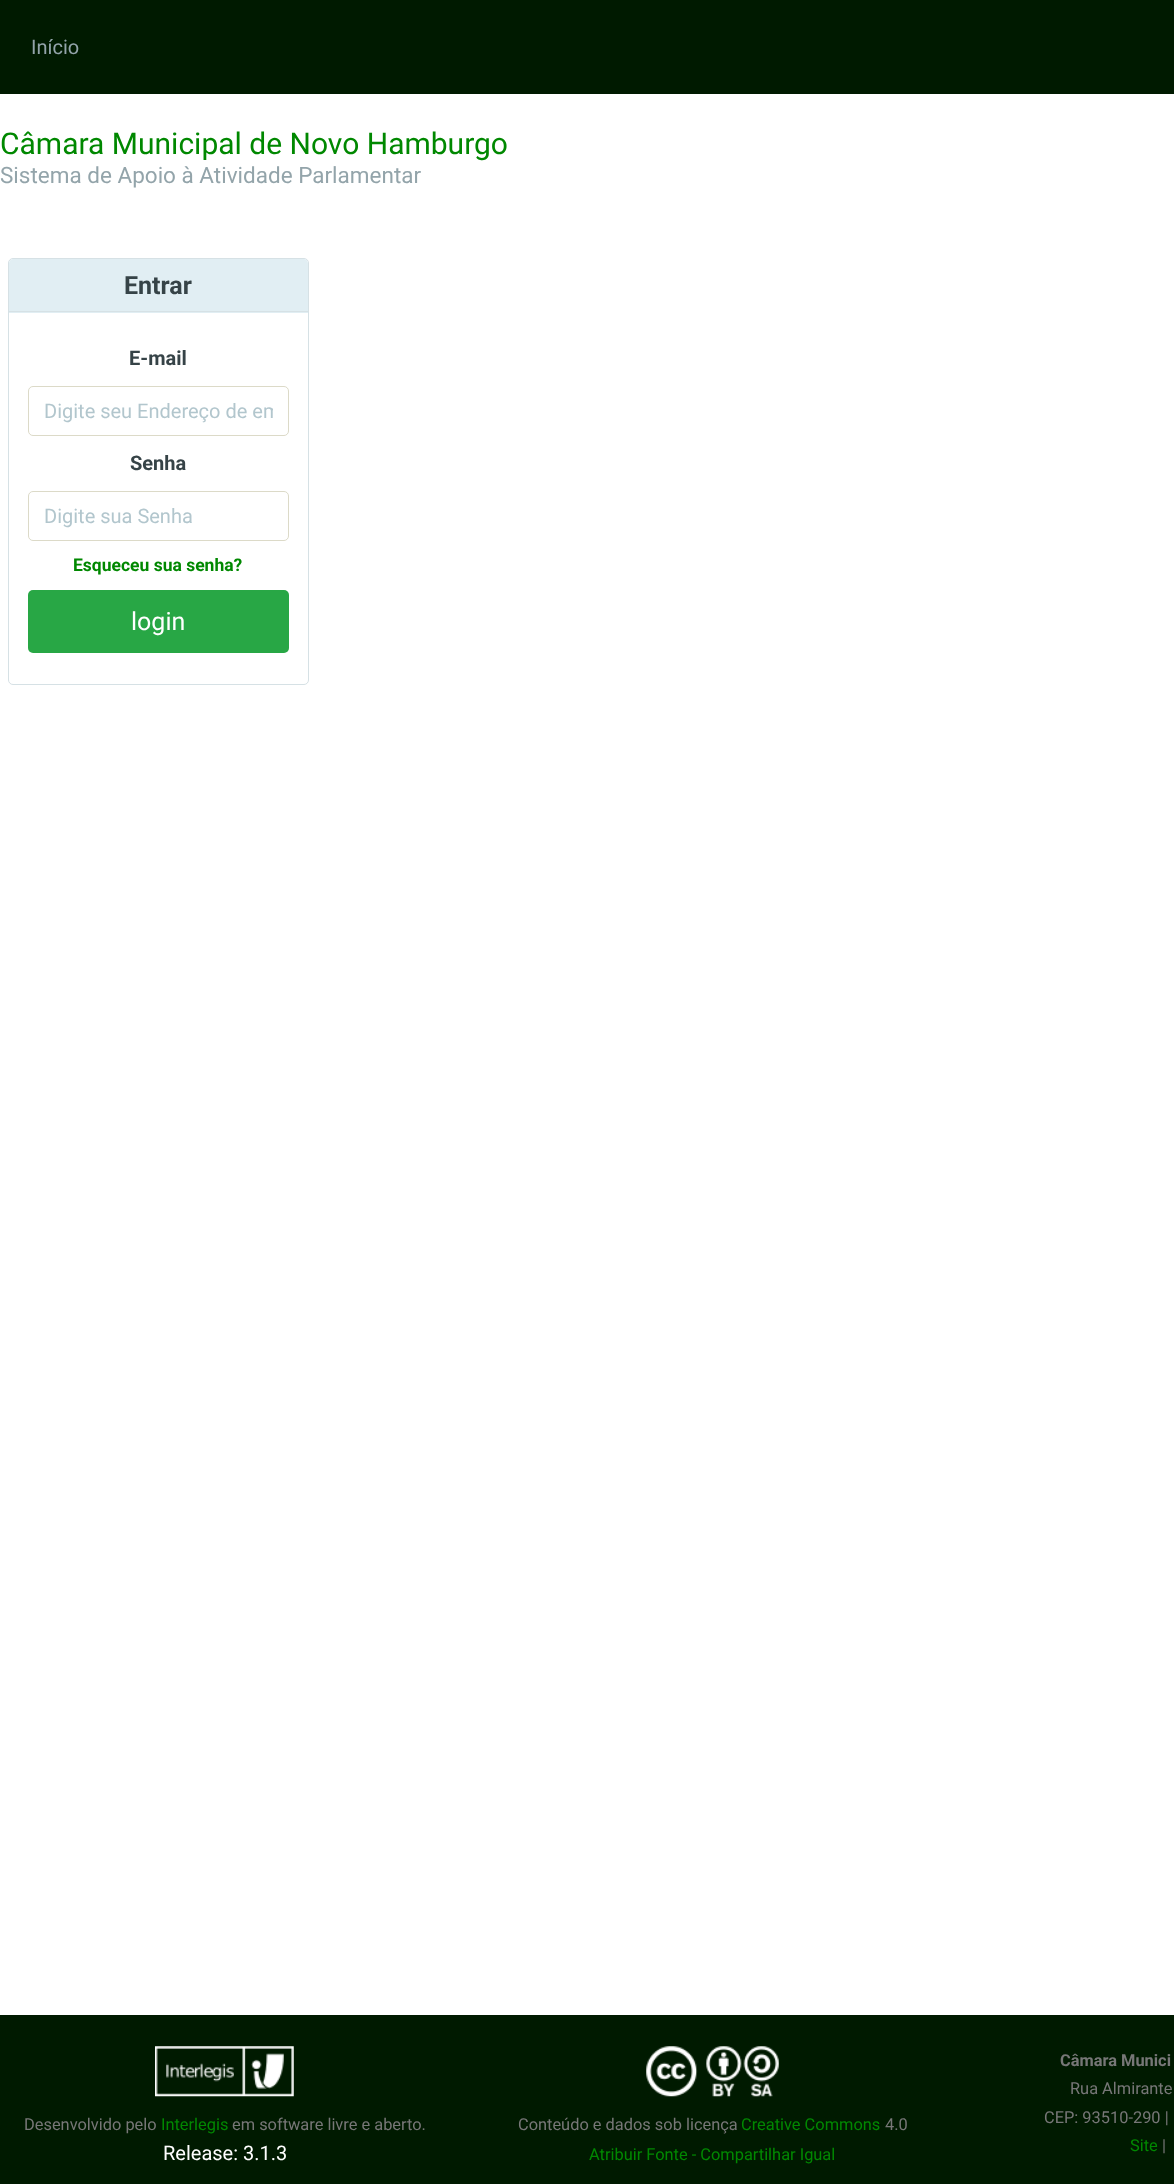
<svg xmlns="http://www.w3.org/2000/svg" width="1174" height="2184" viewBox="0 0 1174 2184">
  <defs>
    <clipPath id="clip1"><path d="M44 400h229v24H44z"/></clipPath>
  </defs>
  <rect width="100%" height="100%" fill="#fff"/>
  <path d="M0 0h1174v94H0z" fill="#001a00"/>
  <rect x="8.5" y="258.5" width="300" height="426" rx="4.5" fill="none" stroke="#d6e1e5"/>
  <path d="M13 259H304C306 259 308 261 308 263V313H9V263C9 261 11 259 13 259Z" fill="#e1eef3"/>
  <path d="M9 311h299v1H9z" fill="#d6e1e5"/>
  <rect x="28.5" y="386.5" width="260" height="49" rx="4.5" fill="none" stroke="#dcdac8"/>
  <rect x="28.5" y="491.5" width="260" height="49" rx="4.5" fill="none" stroke="#dcdac8"/>
  <rect x="28" y="590" width="261" height="63" rx="5" fill="#28a745"/>
  <path d="M0 2015h1174v169H0z" fill="#001a00"/>
  <image x="155" y="2046" width="139" height="51" href="img/1.png"/>
  <image x="646" y="2046" width="133" height="51" href="img/2.png"/>
  <text x="31" y="54" font-family="Roboto" font-size="20" fill="#93a4aa">Início</text>
  <text x="0" y="154" font-family="Roboto" font-size="30" fill="#080">Câmara Municipal de Novo Hamburgo</text>
  <text x="0" y="183" font-family="Roboto" font-size="22.5" fill="#93a4aa">Sistema de Apoio à Atividade Parlamentar</text>
  <text x="124" y="294" font-family="Roboto" font-size="25" font-weight="bold" fill="#364347">Entrar</text>
  <text x="129" y="365" font-family="Roboto" font-size="20" font-weight="bold" fill="#364347">E-mail</text>
  <g clip-path="url(#clip1)">
    <text x="44" y="418" font-family="Roboto" font-size="20" fill="#b2c6cd">Digite seu Endereço de em</text>
  </g>
  <text x="130" y="470" font-family="Roboto" font-size="20" font-weight="bold" fill="#364347">Senha</text>
  <text x="44" y="523" font-family="Roboto" font-size="20" fill="#b2c6cd">Digite sua Senha</text>
  <text x="73" y="571" font-family="Roboto" font-size="17.5" font-weight="bold" fill="#080">Esqueceu sua senha?</text>
  <text x="131" y="630" font-family="Roboto" font-size="25" fill="#fff">login</text>
  <text x="24" y="2130" font-family="Roboto" font-size="16.4" fill="#777">Desenvolvido pelo</text>
  <text x="161" y="2130" font-family="Roboto" font-size="16.4" fill="#080">Interlegis</text>
  <text x="232" y="2130" font-family="Roboto" font-size="16.4" fill="#777">em software livre e aberto.</text>
  <text x="163" y="2160" font-family="Roboto" font-size="20" fill="#fff">Release: 3.1.3</text>
  <text x="518" y="2130" font-family="Roboto" font-size="16.4" fill="#777">Conteúdo e dados sob licença</text>
  <text x="741" y="2130" font-family="Roboto" font-size="16.4" fill="#080">Creative Commons</text>
  <text x="885" y="2130" font-family="Roboto" font-size="16.4" fill="#777">4.0</text>
  <text x="589" y="2160" font-family="Roboto" font-size="16.4" fill="#080">Atribuir Fonte - Compartilhar Igual</text>
  <text x="1060" y="2066" font-family="Roboto" font-size="16.4" font-weight="bold" fill="#777">Câmara Munici</text>
  <g font-family="Roboto" font-size="16.4" fill="#777">
    <text x="1070" y="2094">Rua Almirante</text>
    <text x="1044" y="2123">CEP: 93510-290 |</text>
  </g>
  <text x="1130" y="2151" font-family="Roboto" font-size="16.4" fill="#080">Site</text>
  <text x="1162" y="2151" font-family="Roboto" font-size="16.4" fill="#777">|</text>
</svg>
